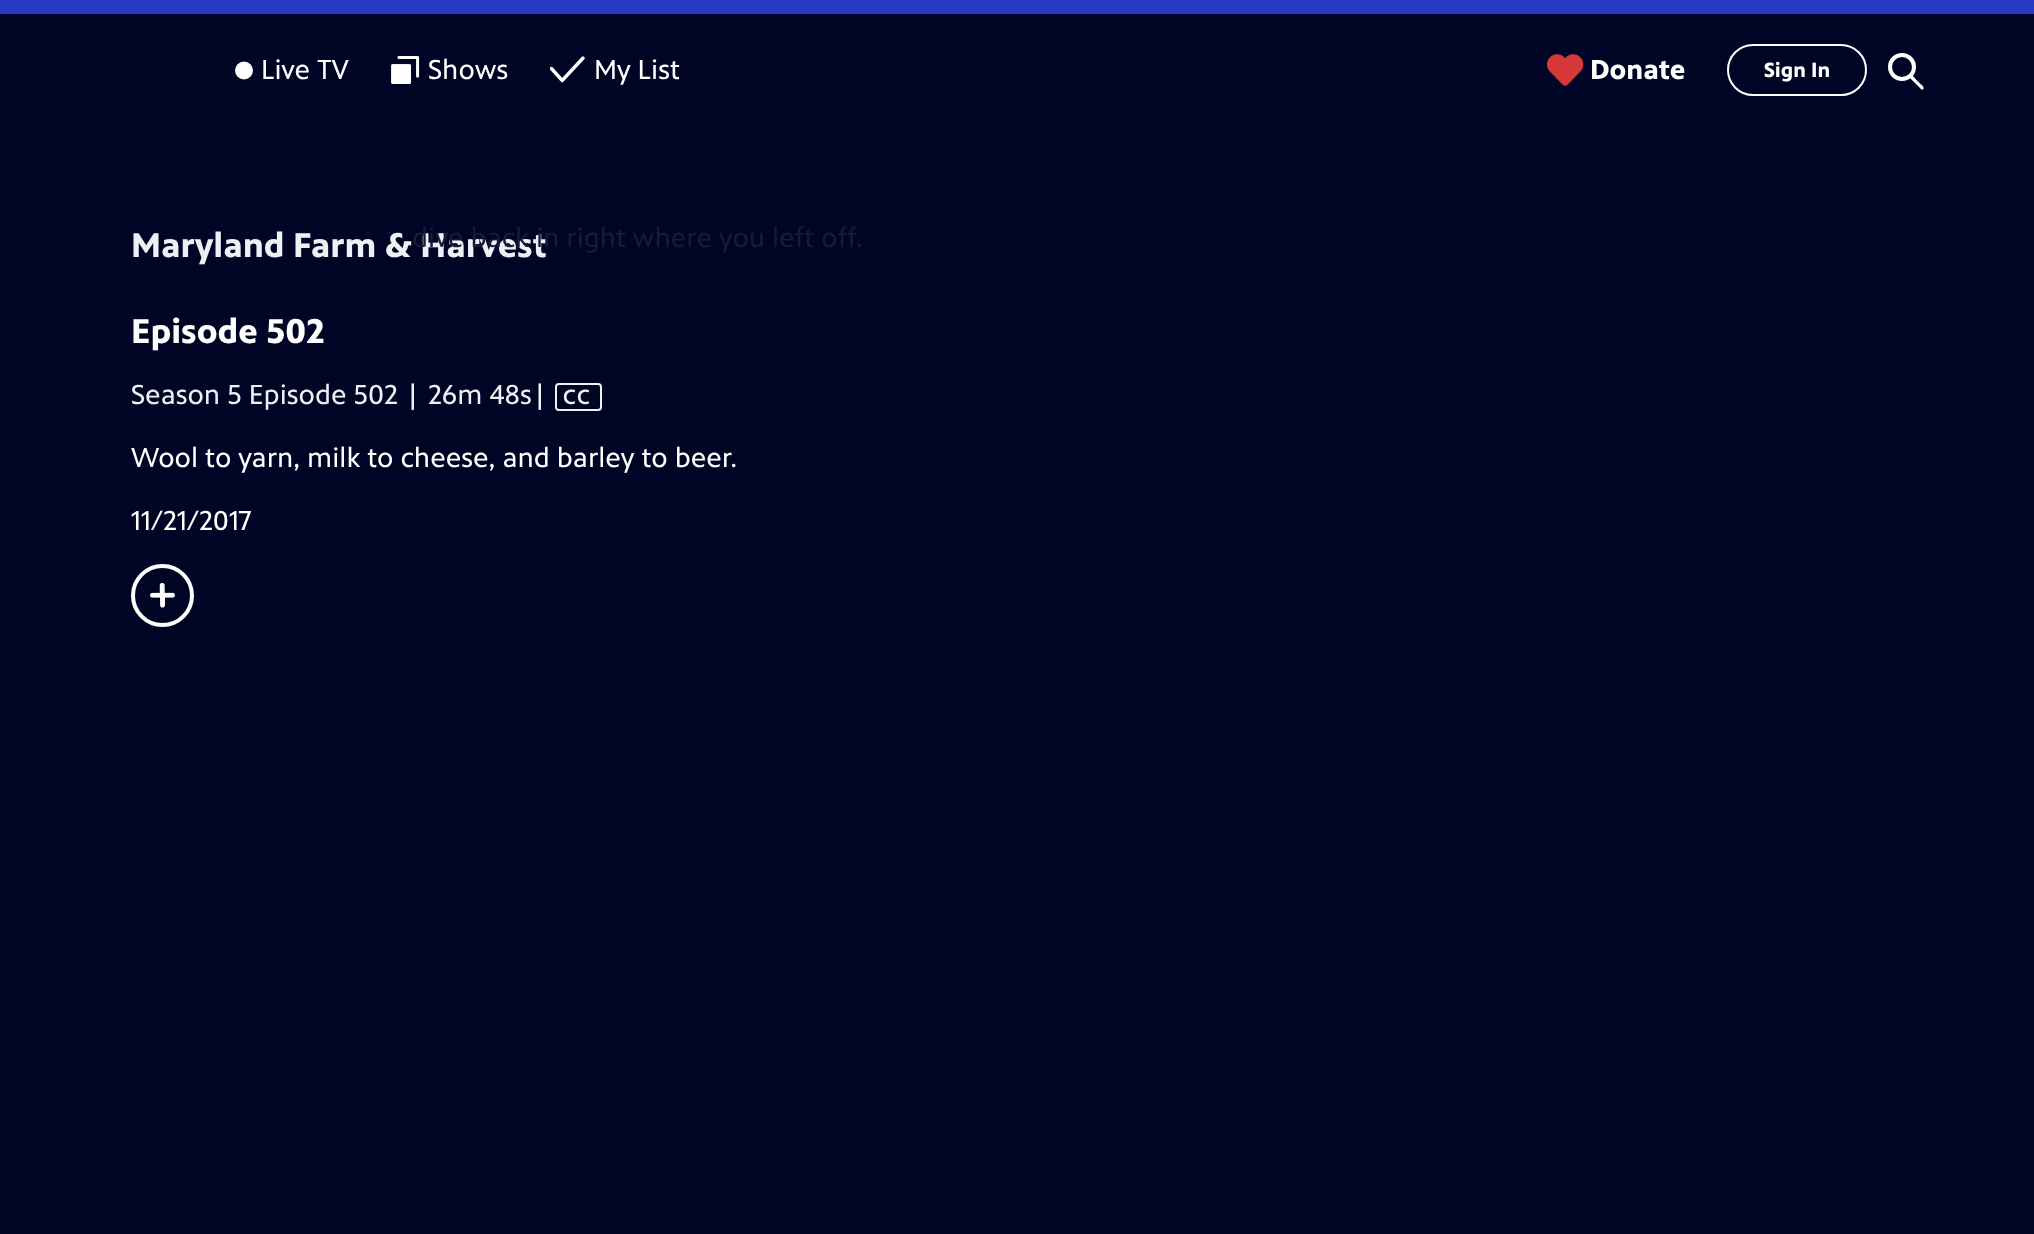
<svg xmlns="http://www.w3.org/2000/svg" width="2034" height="1234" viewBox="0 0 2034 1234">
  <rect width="100%" height="100%" fill="#000525"/>
  <path d="M0 0h2034v14H0z" fill="#2638c4"/>
  <circle cx="244" cy="70.5" r="9" fill="#fff"/>
  <image x="391" y="56" width="29" height="28" href="img/1.png"/>
  <image x="550" y="56" width="35" height="27" href="img/2.png"/>
  <image x="1547" y="54" width="37" height="32" href="img/3.png"/>
  <rect x="1728" y="45" width="138" height="50" rx="25" fill="none" stroke="#fff" stroke-width="2"/>
  <circle cx="1902" cy="67" r="12" fill="none" stroke="#fff" stroke-width="4"/>
  <path d="M1921 89L1909 77V75.5C1911 72.5 1914.5 78 1915.5 79L1919.5 83C1920.5 84 1923.5 86 1923.5 87.5C1924 89.5 1922 90.5 1921 89Z" fill="#fff"/>
  <rect x="556" y="384" width="45" height="26" rx="3" fill="none" stroke="#eef0f5" stroke-width="2"/>
  <circle cx="162.5" cy="595.5" r="29.5" fill="none" stroke="#fff" stroke-width="4"/>
  <image x="150" y="583" width="25" height="25" href="img/4.png"/>
  <g font-family="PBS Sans" font-size="28" fill="#fff">
    <text x="261" y="79">Live TV</text>
    <text x="428" y="79">Shows</text>
    <text x="594" y="79">My List</text>
  </g>
  <text x="1590" y="79" font-family="PBS Sans" font-size="28" font-weight="bold" fill="#fff">Donate</text>
  <text x="1764" y="77" font-family="PBS Sans" font-size="21" font-weight="bold" fill="#fff">Sign In</text>
  <text x="131" y="257" font-family="PBS Sans" font-size="35" font-weight="bold" fill="#eef0f5">Maryland Farm &amp; Harvest</text>
  <text x="412" y="247" font-family="PBS Sans" font-size="28" fill="#161b38">dive back in right where you left off.</text>
  <text x="131" y="343" font-family="PBS Sans" font-size="35" font-weight="bold" fill="#fff">Episode 502</text>
  <text x="131" y="404" font-family="PBS Sans" font-size="28" fill="#eef0f5">Season 5 Episode 502 | 26m 48s|</text>
  <text x="563" y="404" font-family="PBS Sans" font-size="21" font-weight="500" letter-spacing="2" fill="#eef0f5">CC</text>
  <g font-family="PBS Sans" font-size="28" fill="#fff">
    <text x="131" y="467">Wool to yarn, milk to cheese, and barley to beer.</text>
    <text x="131" y="530">11/21/2017</text>
  </g>
</svg>
